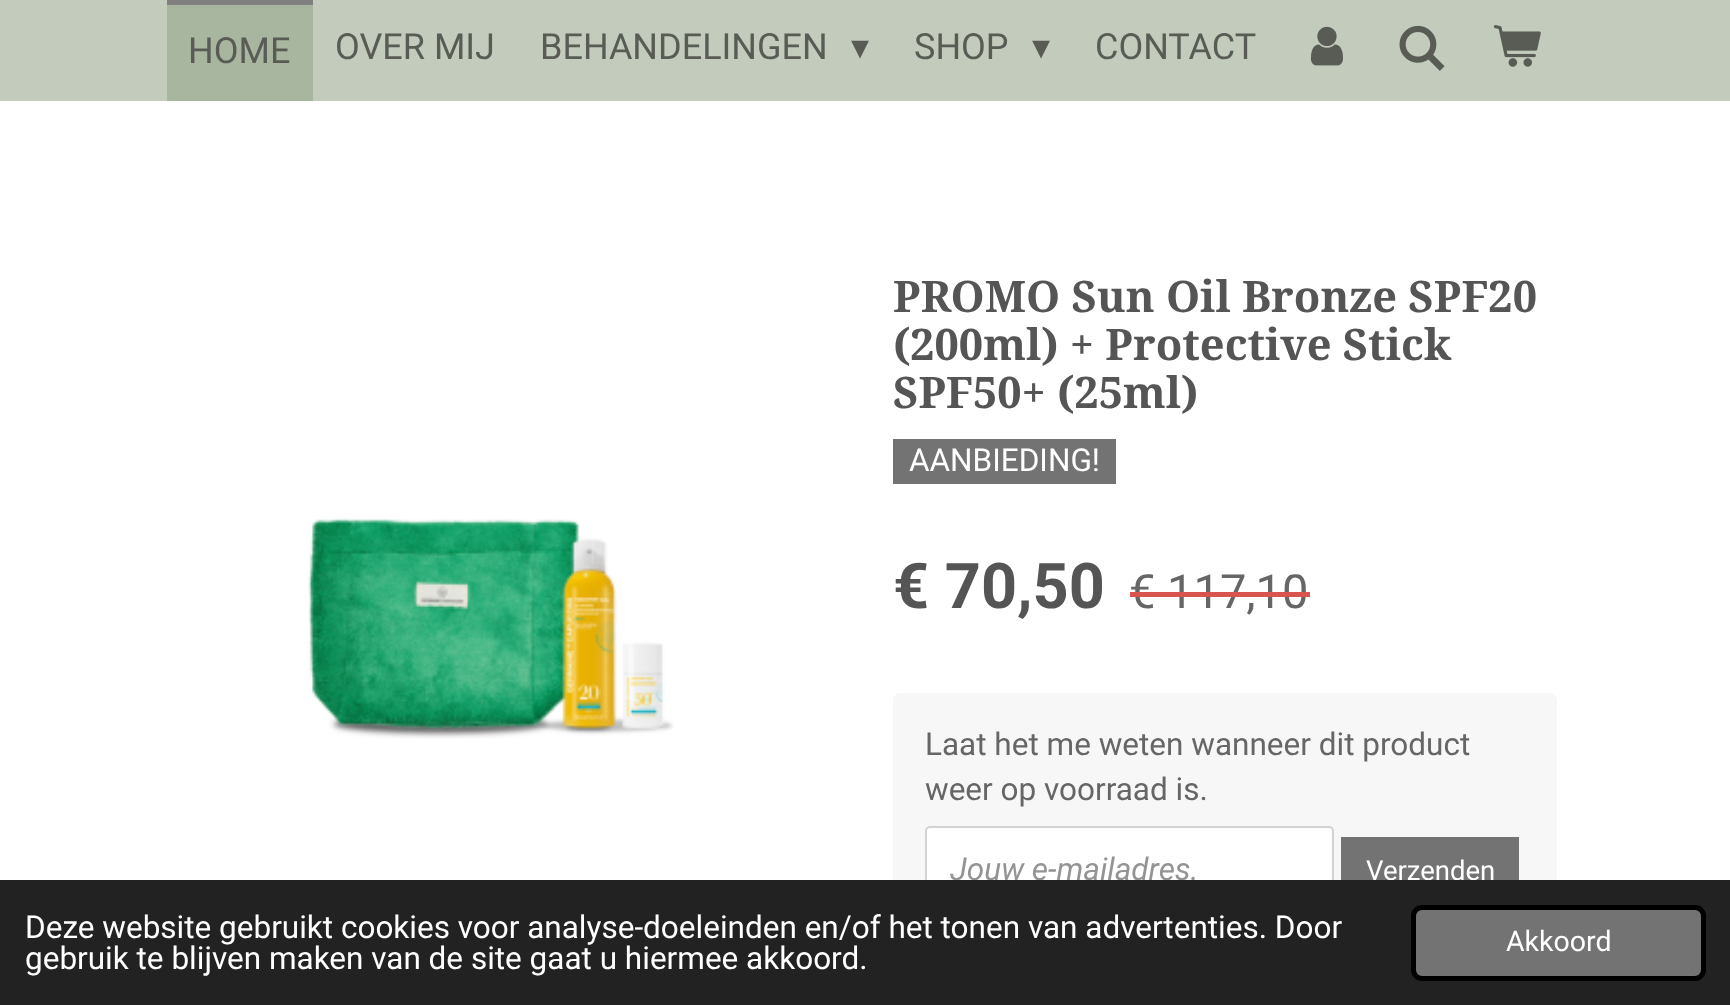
<svg xmlns="http://www.w3.org/2000/svg" width="1730" height="1005" viewBox="0 0 1730 1005">
  <rect width="100%" height="100%" fill="#fff"/>
  <path d="M0 0h1730v101H0z" fill="#c3ccbc"/>
  <path d="M167 5h146v96H167z" fill="#a9b69f"/>
  <path d="M167 0h146v5H167z" fill="#808080"/>
  <image x="1310" y="26" width="33" height="40" href="img/1.png"/>
  <image x="1399" y="25" width="46" height="46" href="img/2.png"/>
  <image x="1493" y="25" width="48" height="42" href="img/3.png"/>
  <path d="M893 439h223v45H893z" fill="#737373"/>
  <image x="308" y="518" width="366" height="221" href="img/4.png"/>
  <rect x="893" y="693" width="664" height="250" rx="7" fill="#f7f7f7"/>
  <rect x="925" y="826" width="409" height="85" rx="5" fill="#fff"/>
  <rect x="926" y="827" width="407" height="83" rx="4" fill="none" stroke="#a6a6a680" stroke-width="2"/>
  <path d="M1341 837h178v43H1341z" fill="#737373"/>
  <g font-family="Roboto" font-size="36" fill="#585c55">
    <text x="188" y="63">HOME</text>
    <text x="335" y="59">OVER MIJ</text>
    <text x="540" y="59">BEHANDELINGEN</text>
  </g>
  <text x="851" y="59" font-family="DejaVu Sans" font-size="36" fill="#585c55">▾</text>
  <text x="914" y="59" font-family="Roboto" font-size="36" fill="#585c55">SHOP</text>
  <text x="1032" y="59" font-family="DejaVu Sans" font-size="36" fill="#585c55">▾</text>
  <text x="1095" y="59" font-family="Roboto" font-size="36" fill="#585c55">CONTACT</text>
  <g font-family="Droid Serif" font-size="43.4" font-weight="bold" fill="#555">
    <text x="893" y="312">PROMO Sun Oil Bronze SPF20</text>
    <text x="893" y="360">(200ml) + Protective Stick</text>
    <text x="893" y="408">SPF50+ (25ml)</text>
  </g>
  <text x="909" y="471" font-family="Roboto" font-size="31.5" fill="#fff">AANBIEDING!</text>
  <text x="893" y="608" font-family="Roboto" font-size="63" font-weight="bold" fill="#555">€ 70,50</text>
  <text x="1129" y="608" font-family="Roboto" font-size="47" fill="#666">€ 117,10</text>
  <path d="M1130 592h180v5H1130z" fill="#d9534f"/>
  <g font-family="Roboto" font-size="31.5" fill="#666">
    <text x="925" y="755">Laat het me weten wanneer dit product</text>
    <text x="925" y="800">weer op voorraad is.</text>
  </g>
  <text x="950" y="880" font-family="Roboto" font-size="31.5" font-style="italic" fill="#949494">Jouw e-mailadres.</text>
  <text x="1366" y="880" font-family="Roboto" font-size="27.5" fill="#fff">Verzenden</text>
  <path d="M0 880h1730v125H0z" fill="#222"/>
  <g font-family="Roboto" font-size="31.5" fill="#fff">
    <text x="25" y="938">Deze website gebruikt cookies voor analyse-doeleinden en/of het tonen van advertenties. Door</text>
    <text x="25" y="969">gebruik te blijven maken van de site gaat u hiermee akkoord.</text>
  </g>
  <rect x="1413.5" y="907.5" width="290" height="71" rx="8.5" fill="#737373" stroke="#000" stroke-width="5"/>
  <text x="1506" y="951" font-family="Roboto" font-size="28.5" fill="#fff">Akkoord</text>
</svg>
